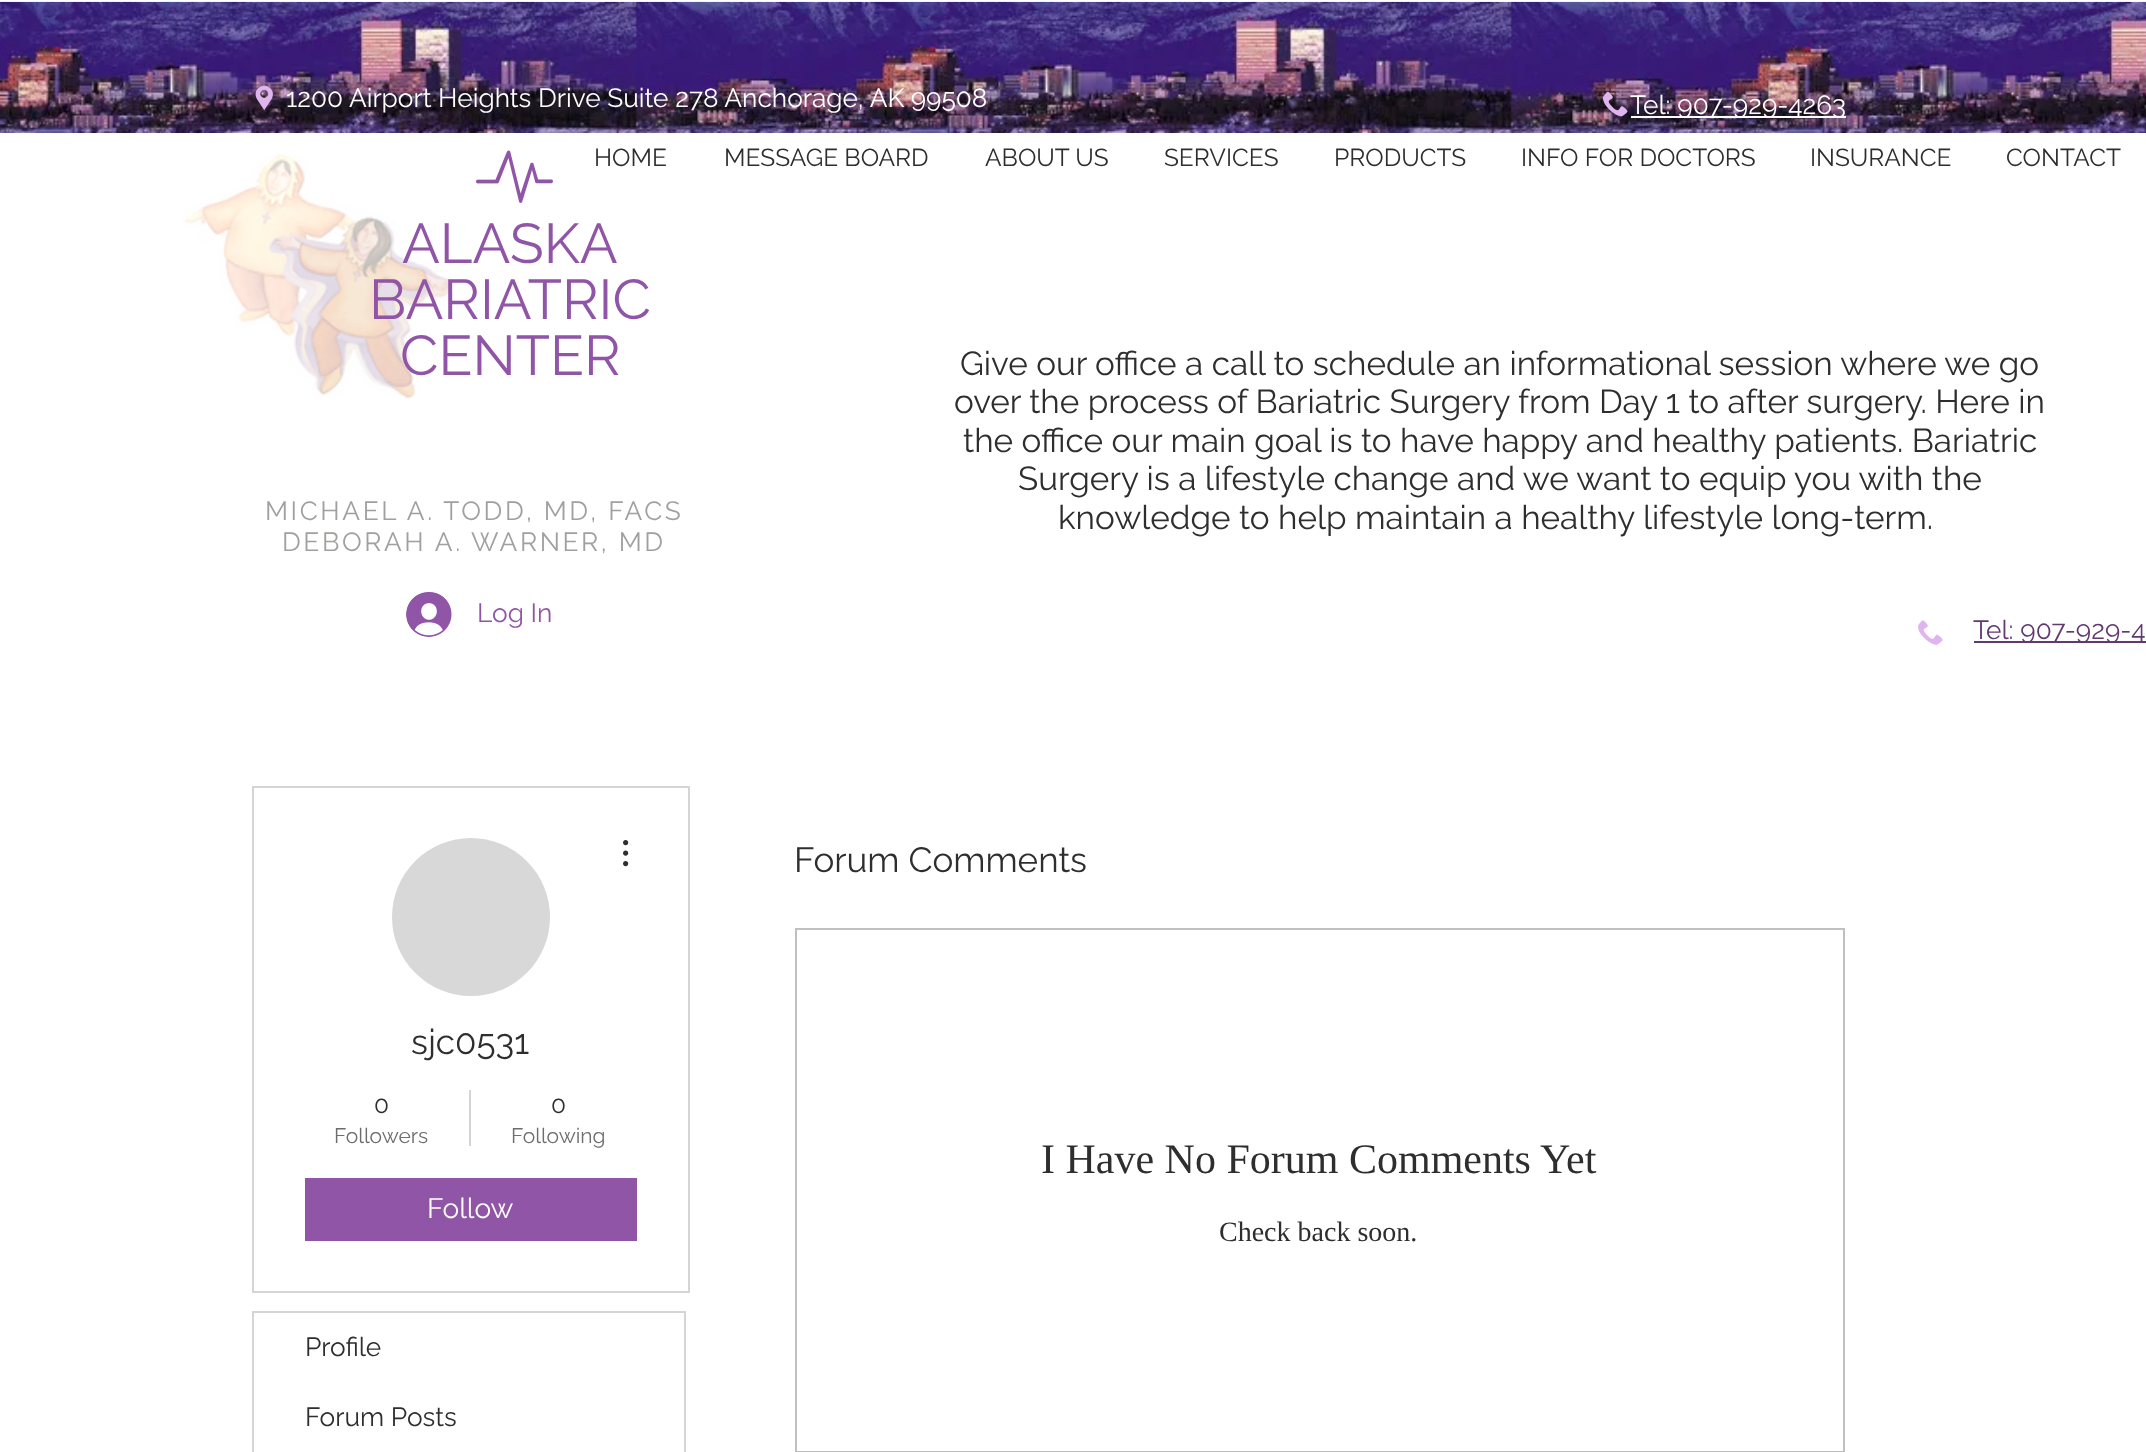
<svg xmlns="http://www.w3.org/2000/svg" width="2146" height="1452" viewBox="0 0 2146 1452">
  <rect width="100%" height="100%" fill="#fff"/>
  <image x="0" y="1" width="2146" height="132" href="img/1.png"/>
  <image x="255" y="85" width="18" height="26" href="img/2.png"/>
  <image x="1603" y="91" width="25" height="26" href="img/3.png"/>
  <path d="M1631 116h215v2H1631z" fill="#fff"/>
  <image x="184" y="154" width="268" height="245" href="img/4.png"/>
  <image x="476" y="150" width="77" height="53" href="img/5.png"/>
  <image x="406" y="592" width="46" height="45" href="img/6.png"/>
  <image x="1918" y="620" width="25" height="25" href="img/7.png"/>
  <path d="M1974 641h172v2H1974z" fill="#61396f"/>
  <path d="M253 787h436v505H253z" fill="none" stroke="#d5d5d5" stroke-width="2"/>
  <circle cx="471" cy="917" r="79" fill="#d8d8d8"/>
  <image x="623" y="840" width="6" height="27" href="img/8.png"/>
  <path d="M469 1090h2v56H469z" fill="#d5d5d5"/>
  <path d="M305 1178h332v63H305z" fill="#9155a7"/>
  <path d="M253 1312h432v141H253z" fill="none" stroke="#d5d5d5" stroke-width="2"/>
  <path d="M796 929h1048v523H796z" fill="none" stroke="#c1c0c0" stroke-width="2"/>
  <g font-family="Raleway" font-size="26.25" fill="#fff">
    <text x="286" y="107">1200 Airport Heights Drive Suite 278 Anchorage, AK 99508</text>
    <text x="1630" y="114">Tel: 907-929-4263</text>
  </g>
  <g font-family="Raleway" font-size="24.5" fill="#2f2e2e">
    <text x="594" y="166">HOME</text>
    <text x="724" y="166">MESSAGE BOARD</text>
    <text x="985" y="166">ABOUT US</text>
    <text x="1164" y="166">SERVICES</text>
    <text x="1334" y="166">PRODUCTS</text>
    <text x="1521" y="166">INFO FOR DOCTORS</text>
    <text x="1810" y="166">INSURANCE</text>
    <text x="2006" y="166">CONTACT</text>
  </g>
  <g font-family="Raleway" font-size="56" fill="#9155a7">
    <text x="402" y="263">ALASKA</text>
    <text x="369" y="319">BARIATRIC</text>
    <text x="400" y="375">CENTER</text>
  </g>
  <g font-family="Raleway" font-size="26.25" letter-spacing="2.6" fill="#a0a09f">
    <text x="265" y="520">MICHAEL A. TODD, MD, FACS</text>
    <text x="282" y="551">DEBORAH A. WARNER, MD</text>
  </g>
  <g font-family="Raleway" font-size="33.25" fill="#2f2e2e">
    <text x="960" y="375">Give our office a call to schedule an informational session where we go</text>
    <text x="954" y="413">over the process of Bariatric Surgery from Day 1 to after surgery. Here in</text>
    <text x="963" y="452">the office our main goal is to have happy and healthy patients. Bariatric</text>
    <text x="1018" y="490">Surgery is a lifestyle change and we want to equip you with the</text>
    <text x="1058" y="529">knowledge to help maintain a healthy lifestyle long-term.</text>
  </g>
  <text x="477" y="622" font-family="Raleway" font-size="26.25" fill="#9155a7">Log In</text>
  <text x="1973" y="639" font-family="Raleway" font-size="26.25" fill="#61396f">Tel: 907-929-4</text>
  <text x="411" y="1054" font-family="Raleway" font-size="35" fill="#2f2e2e">sjc0531</text>
  <text x="374" y="1113" font-family="Raleway" font-size="24.5" fill="#2f2e2e">0</text>
  <text x="334" y="1143" font-family="Raleway" font-size="21" fill="#6d6d6d">Followers</text>
  <text x="551" y="1113" font-family="Raleway" font-size="24.5" fill="#2f2e2e">0</text>
  <text x="511" y="1143" font-family="Raleway" font-size="21" fill="#6d6d6d">Following</text>
  <text x="427" y="1218" font-family="Raleway" font-size="28" fill="#fff">Follow</text>
  <g font-family="Raleway" font-size="26.25" fill="#2f2e2e">
    <text x="305" y="1356">Profile</text>
    <text x="305" y="1426">Forum Posts</text>
  </g>
  <text x="794" y="872" font-family="Raleway" font-size="35" fill="#2f2e2e">Forum Comments</text>
  <text x="1041" y="1173" font-family="Liberation Serif" font-size="42" fill="#2f2e2e">I Have No Forum Comments Yet</text>
  <text x="1219" y="1241" font-family="Liberation Serif" font-size="28" fill="#2f2e2e">Check back soon.</text>
</svg>
